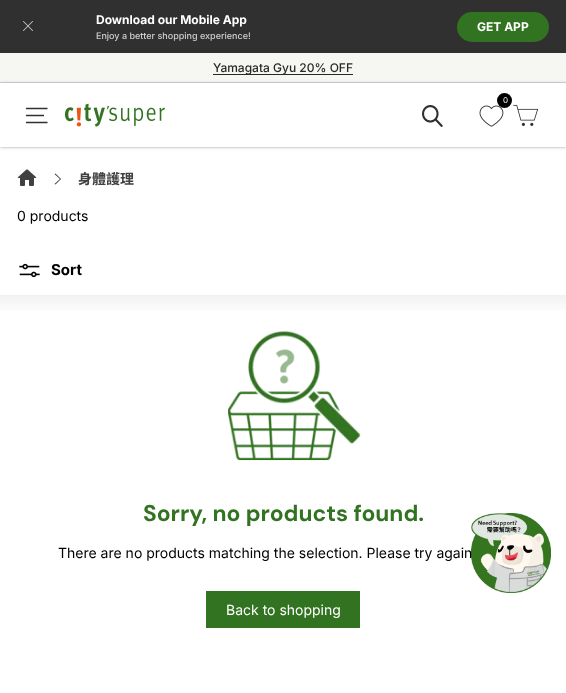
<svg xmlns="http://www.w3.org/2000/svg" width="566" height="693" viewBox="0 0 566 693">
  <defs>
    <linearGradient id="g1" gradientUnits="userSpaceOnUse" x1="283" y1="295" x2="283" y2="315"><stop offset="0" stop-color="#f2f2f2"/><stop offset="1" stop-color="#fff"/></linearGradient>
  </defs>
  <rect width="100%" height="100%" fill="#fff"/>
  <path d="M0 0h566v53H0z" fill="#303030"/>
  <image x="23" y="21" width="10" height="10" href="img/1.png"/>
  <rect x="457" y="12" width="92" height="30" rx="15" fill="#327321"/>
  <path d="M0 53h566v29H0z" fill="#f6f6f3"/>
  <path d="M213 74h140v1H213z" fill="#282828"/>
  <path d="M0 82h566v1H0z" fill="#d7d7d5"/>
  <path d="M0 83h566v64H0z" fill="#0000001a" filter="blur(1px)"/>
  <path d="M0 83h566v64H0z" fill="#0000001a" filter="blur(2px)"/>
  <path d="M0 100h566v47H0z" fill="#0000001a" filter="blur(1px)"/>
  <path d="M0 100h566v47H0z" fill="#0000001a" filter="blur(2px)"/>
  <path d="M0 83h566v64H0z" fill="#fff"/>
  <image x="479" y="105" width="25" height="22" href="img/2.png"/>
  <circle cx="504.5" cy="100.5" r="7.5" fill="#000"/>
  <path d="M26 108.5H47.5M26 115.5H44M26 122.5H47.5" fill="none" stroke="#303030" stroke-width="1.7"/>
  <image x="422" y="105" width="21" height="22" href="img/3.png"/>
  <image x="513" y="104" width="26" height="22" href="img/4.png"/>
  <image x="65" y="103" width="100" height="24" href="img/5.png"/>
  <image x="17" y="169" width="20" height="17" href="img/6.png"/>
  <path d="M55.5 173.5L61 179L60.5 179.5L54.5 174Z" fill="#414141"/>
  <path d="M60.5 178.5L61 179L55.5 184.5L54.5 184Z" fill="#414141"/>
  <image x="19" y="263" width="21" height="15" href="img/7.png"/>
  <path d="M0 295h566v16H0z" fill="url(#g1)"/>
  <image x="228" y="330" width="133" height="131" href="img/8.png"/>
  <path d="M206 591h154v37H206z" fill="#327321"/>
  <image x="471" y="513" width="80" height="80" href="img/9.png"/>
  <text x="96" y="24" font-family="Inter" font-size="12" font-weight="bold" fill="#fff">Download our Mobile App</text>
  <text x="96" y="39" font-family="Inter" font-size="9" font-weight="500" fill="#cfcfcf">Enjoy a better shopping experience!</text>
  <text x="477" y="31" font-family="Inter" font-size="12" font-weight="bold" fill="#fff">GET APP</text>
  <text x="213" y="72" font-family="Inter" font-size="12" font-weight="500" fill="#282828">Yamagata Gyu 20% OFF</text>
  <text x="503" y="103" font-family="Inter" font-size="8" fill="#fff">0</text>
  <text x="78" y="184" font-family="Noto Sans TC" font-size="14" font-weight="bold" fill="#414141">身體護理</text>
  <text x="17" y="221" font-family="Inter" font-size="14" fill="#000">0 products</text>
  <text x="51" y="275" font-family="Inter" font-size="15" font-weight="bold" fill="#000">Sort</text>
  <text x="143" y="521" font-family="DM Sans" font-size="22.75" font-weight="bold" fill="#327321">Sorry, no products found.</text>
  <text x="58" y="558" font-family="Inter" font-size="14" fill="#000">There are no products matching the selection. Please try again</text>
  <text x="226" y="615" font-family="Inter" font-size="14" fill="#fff">Back to shopping</text>
</svg>
